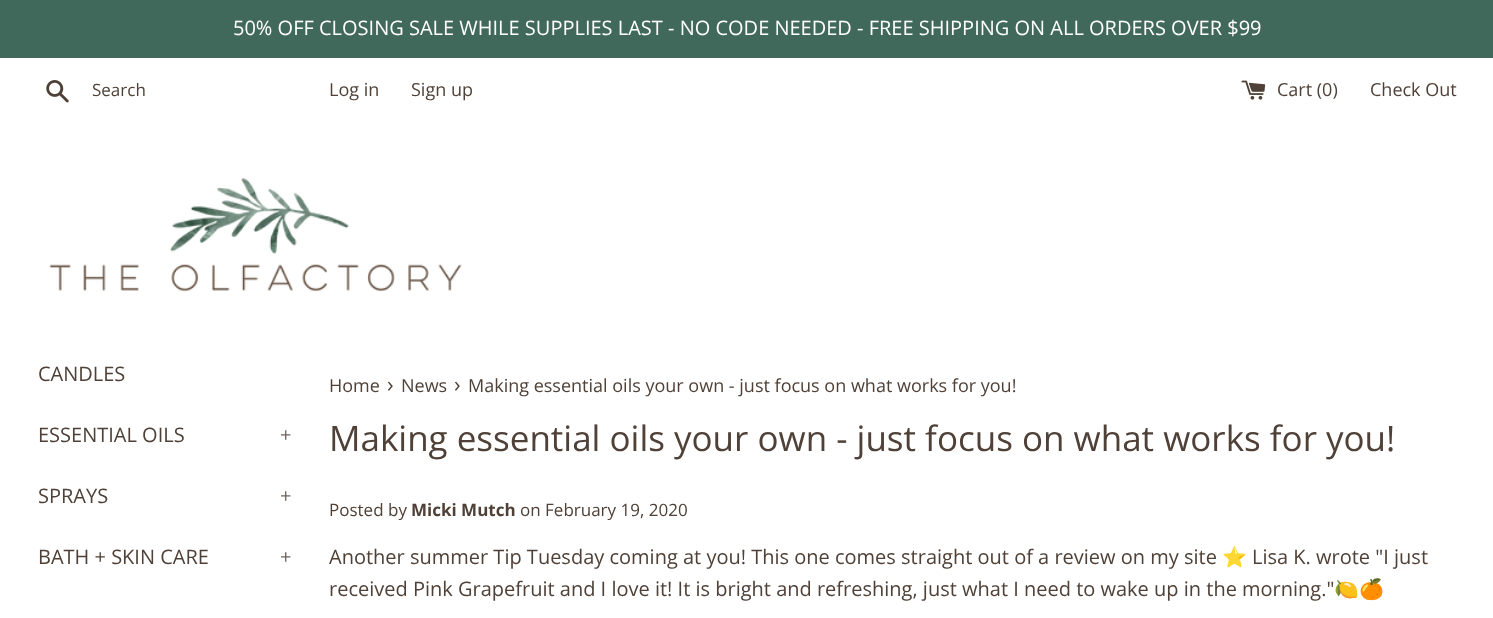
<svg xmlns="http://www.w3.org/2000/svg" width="1493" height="618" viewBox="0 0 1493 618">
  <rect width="100%" height="100%" fill="#fff"/>
  <path d="M0 0h1493v58H0z" fill="#41695b"/>
  <image x="46" y="80" width="23" height="23" href="img/1.png"/>
  <image x="1241" y="80" width="25" height="20" href="img/2.png"/>
  <image x="49" y="178" width="413" height="114" href="img/3.png"/>
  <text x="233" y="35" font-family="Open Sans" font-size="20" fill="#fff">50% OFF CLOSING SALE WHILE SUPPLIES LAST - NO CODE NEEDED - FREE SHIPPING ON ALL ORDERS OVER $99</text>
  <text x="92" y="96" font-family="Open Sans" font-size="17" fill="#4f4137">Search</text>
  <g font-family="Open Sans" font-size="18" fill="#4f4137">
    <text x="329" y="96">Log in</text>
    <text x="411" y="96">Sign up</text>
    <text x="1277" y="96">Cart (0)</text>
    <text x="1370" y="96">Check Out</text>
  </g>
  <g font-family="Open Sans" font-size="20" fill="#4f4137">
    <text x="38" y="381">CANDLES</text>
    <text x="38" y="442">ESSENTIAL OILS</text>
  </g>
  <text x="280" y="442" font-family="Open Sans" font-size="20" fill="#72675f">+</text>
  <text x="38" y="503" font-family="Open Sans" font-size="20" fill="#4f4137">SPRAYS</text>
  <text x="280" y="503" font-family="Open Sans" font-size="20" fill="#72675f">+</text>
  <text x="38" y="564" font-family="Open Sans" font-size="20" fill="#4f4137">BATH + SKIN CARE</text>
  <text x="280" y="564" font-family="Open Sans" font-size="20" fill="#72675f">+</text>
  <text x="329" y="392" font-family="Open Sans" font-size="18" fill="#4f4137">Home</text>
  <text x="387" y="392" font-family="Open Sans" font-size="22" fill="#4f4137">›</text>
  <text x="401" y="392" font-family="Open Sans" font-size="18" fill="#4f4137">News</text>
  <text x="454" y="392" font-family="Open Sans" font-size="22" fill="#4f4137">›</text>
  <text x="468" y="392" font-family="Open Sans" font-size="18" fill="#4f4137">Making essential oils your own - just focus on what works for you!</text>
  <text x="329" y="451" font-family="Open Sans" font-size="35" fill="#4f4137">Making essential oils your own - just focus on what works for you!</text>
  <text x="329" y="516" font-family="Open Sans" font-size="17" fill="#4f4137">Posted by</text>
  <text x="411" y="516" font-family="Open Sans" font-size="17" font-weight="bold" fill="#4f4137">Micki Mutch</text>
  <text x="520" y="516" font-family="Open Sans" font-size="17" fill="#4f4137">on February 19, 2020</text>
  <text x="329" y="564" font-family="Open Sans" font-size="20" fill="#4f4137">Another summer Tip Tuesday coming at you! This one comes straight out of a review on my site</text>
  <text x="1222" y="564" font-family="Noto Color Emoji" font-size="20" fill="#4f4137">⭐️</text>
  <g font-family="Open Sans" font-size="20" fill="#4f4137">
    <text x="1252" y="564">Lisa K. wrote "I just</text>
    <text x="329" y="596">received Pink Grapefruit and I love it! It is bright and refreshing, just what I need to wake up in the morning."</text>
  </g>
  <text x="1334" y="596" font-family="Noto Color Emoji" font-size="20" fill="#4f4137">🍋🍊</text>
</svg>
